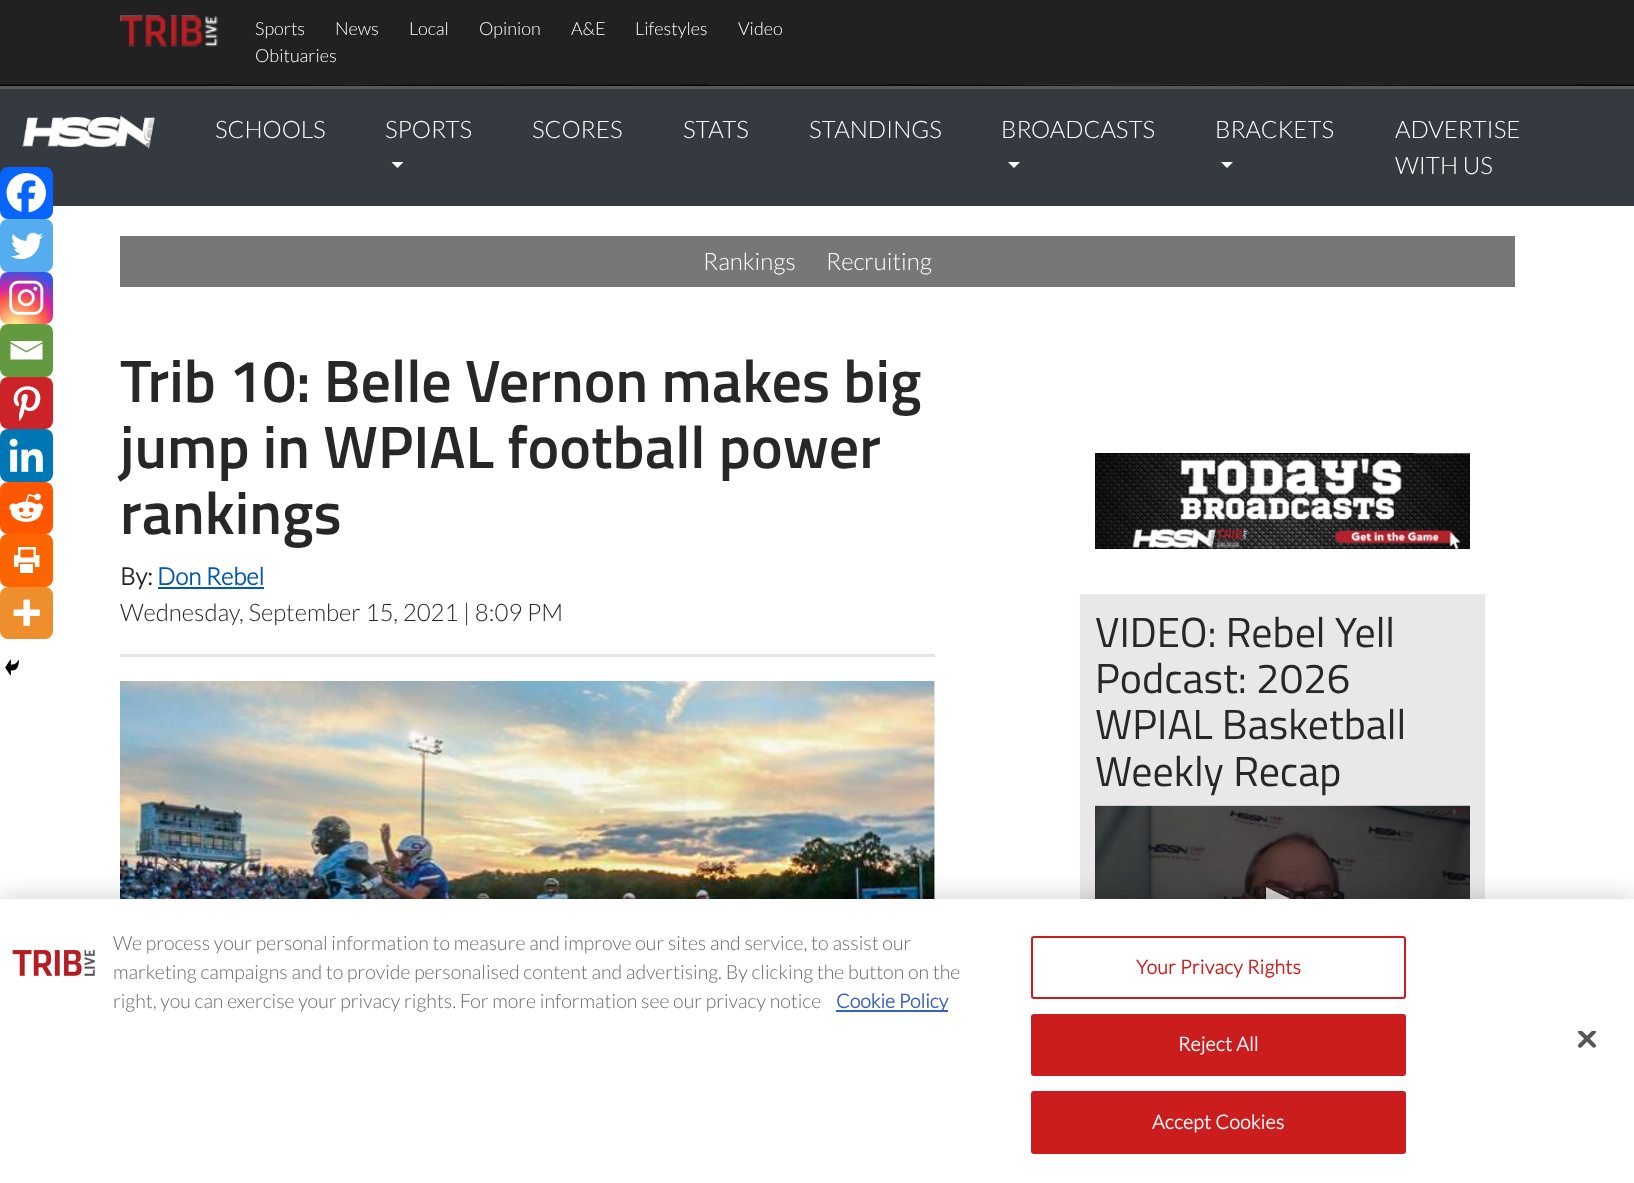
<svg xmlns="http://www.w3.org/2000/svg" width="1634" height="1183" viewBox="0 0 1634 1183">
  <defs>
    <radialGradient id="g1" gradientUnits="userSpaceOnUse" cx="16" cy="328" r="67"><stop offset="0" stop-color="#fdf497"/><stop offset="0.05" stop-color="#fdf497"/><stop offset="0.45" stop-color="#fd5949"/><stop offset="0.6" stop-color="#d6249f"/><stop offset="0.9" stop-color="#285aeb"/></radialGradient>
  </defs>
  <rect width="100%" height="100%" fill="#fff"/>
  <path d="M0 0h1634v84H0z" fill="#212121"/>
  <image x="120" y="15" width="98" height="32" href="img/1.png"/>
  <path d="M0 84h1634v2H0z" fill="#000"/>
  <image x="0" y="84" width="1634" height="2" href="img/2.png"/>
  <path d="M0 89h1634v117H0z" fill="#343a40"/>
  <path d="M0 86h1634v3H0z" fill="#585858"/>
  <image x="22" y="115" width="133" height="34" href="img/3.png"/>
  <path d="M391.5 162H403.5L397.5 168Z" fill="#fff"/>
  <path d="M1008 162H1020L1014 168Z" fill="#fff"/>
  <path d="M1221 162H1233L1227 168Z" fill="#fff"/>
  <path d="M120 236h1395v51H120z" fill="#777"/>
  <rect y="167" width="53" height="52" rx="8" fill="#0765fe"/>
  <image x="6" y="173" width="40" height="40" href="img/4.png"/>
  <rect y="219" width="53" height="53" rx="8" fill="#55acee"/>
  <image x="11" y="232" width="32" height="28" href="img/5.png"/>
  <rect y="272" width="53" height="52" rx="8" fill="url(#g1)"/>
  <image x="9" y="280" width="35" height="35" href="img/6.png"/>
  <rect y="324" width="53" height="53" rx="8" fill="#649a3f"/>
  <path d="M9 341H42.5V342L26.5 351L10.5 342V341M10.5 343.5L26.5 352.5L42.5 343.5V359.5H10.5V343.5" fill="#fff"/>
  <rect y="377" width="53" height="52" rx="8" fill="#cc2329"/>
  <image x="13" y="386" width="28" height="35" href="img/7.png"/>
  <rect y="429" width="53" height="53" rx="8" fill="#0077b5"/>
  <image x="9" y="438" width="34" height="34" href="img/8.png"/>
  <rect y="482" width="53" height="52" rx="8" fill="#ff5700"/>
  <image x="9" y="493" width="35" height="29" href="img/9.png"/>
  <rect y="534" width="53" height="53" rx="8" fill="#fd6500"/>
  <image x="13" y="547" width="27" height="26" href="img/10.png"/>
  <rect y="587" width="53" height="52" rx="8" fill="#ee8e2d"/>
  <image x="13" y="599" width="27" height="27" href="img/11.png"/>
  <image x="5" y="659" width="14" height="17" href="img/12.png"/>
  <path d="M158 587h106v2H158z" fill="#0056b3"/>
  <path d="M120 654h815v3H120z" fill="#e6e6e6"/>
  <image x="120" y="681" width="815" height="218" href="img/13.png"/>
  <image x="1095" y="453" width="375" height="96" href="img/14.png"/>
  <path d="M1080 594h405v305H1080z" fill="#e9e7e7"/>
  <image x="1095" y="805" width="375" height="94" href="img/15.png"/>
  <path d="M1267 931L1266 930.5L1265.5 887.5L1266.5 887L1309.5 908.5V909.5Z" fill="none" stroke="#0000004d" stroke-width="1.8"/>
  <path d="M1267 931H1266V887L1309 908L1310 909Z" fill="#ffffffcc"/>
  <path d="M0 899h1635v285H0z" fill="#00000033" filter="blur(13.5px)"/>
  <path d="M0 899h1634v284H0z" fill="#fff"/>
  <image x="12" y="949" width="83" height="29" href="img/16.png"/>
  <path d="M836 1010h112v2H836z" fill="#3860be"/>
  <rect x="1032" y="937" width="373" height="61" rx="2" fill="none" stroke="#cb1d1d" stroke-width="2"/>
  <rect x="1032" y="1015" width="373" height="60" rx="2" fill="#cb1d1d" stroke="#cb1d1d" stroke-width="2"/>
  <rect x="1032" y="1092" width="373" height="61" rx="2" fill="#cb1d1d" stroke="#cb1d1d" stroke-width="2"/>
  <image x="1578" y="1031" width="18" height="17" href="img/17.png"/>
  <g font-family="Lato" font-size="18" font-weight="300" fill="#fff">
    <text x="255" y="35">Sports</text>
    <text x="335" y="35">News</text>
    <text x="409" y="35">Local</text>
    <text x="479" y="35">Opinion</text>
    <text x="571" y="35">A&amp;E</text>
    <text x="635" y="35">Lifestyles</text>
    <text x="738" y="35">Video</text>
    <text x="255" y="62">Obituaries</text>
  </g>
  <g font-family="Lato" font-size="24" font-weight="300" fill="#fff">
    <text x="215" y="138">SCHOOLS</text>
    <text x="385" y="138">SPORTS</text>
    <text x="532" y="138">SCORES</text>
    <text x="683" y="138">STATS</text>
    <text x="809" y="138">STANDINGS</text>
    <text x="1001" y="138">BROADCASTS</text>
    <text x="1215" y="138">BRACKETS</text>
    <text x="1395" y="138">ADVERTISE</text>
    <text x="1395" y="174">WITH US</text>
    <text x="703" y="270">Rankings</text>
    <text x="826" y="270">Recruiting</text>
  </g>
  <g font-family="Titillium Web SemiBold" font-size="60" font-weight="600" fill="#272727">
    <text x="120" y="402">Trib 10: Belle Vernon makes big</text>
    <text x="120" y="468">jump in WPIAL football power</text>
    <text x="120" y="534">rankings</text>
  </g>
  <text x="120" y="585" font-family="Lato" font-size="24" font-weight="bold" fill="#272727">By:</text>
  <text x="157" y="585" font-family="Lato" font-size="24" font-weight="bold" fill="#0056b3">Don Rebel</text>
  <text x="120" y="621" font-family="Lato" font-size="24" font-weight="300" fill="#272727">Wednesday, September 15, 2021 | 8:09 PM</text>
  <g font-family="Titillium Web" font-size="42" fill="#272727">
    <text x="1095" y="647">VIDEO: Rebel Yell</text>
    <text x="1095" y="693">Podcast: 2026</text>
    <text x="1095" y="739">WPIAL Basketball</text>
    <text x="1095" y="786">Weekly Recap</text>
  </g>
  <g font-family="Lato" font-size="19.5" font-weight="300" fill="#696969">
    <text x="113" y="950">We process your personal information to measure and improve our sites and service, to assist our</text>
    <text x="113" y="979">marketing campaigns and to provide personalised content and advertising. By clicking the button on the</text>
    <text x="113" y="1008">right, you can exercise your privacy rights. For more information see our privacy notice</text>
  </g>
  <text x="836" y="1008" font-family="Lato" font-size="19.5" font-weight="bold" fill="#3860be">Cookie Policy</text>
  <text x="1136" y="974" font-family="Lato" font-size="19.5" font-weight="bold" letter-spacing="0.25" fill="#cb1d1d">Your Privacy Rights</text>
  <g font-family="Lato" font-size="19.5" font-weight="bold" letter-spacing="0.25" fill="#fff">
    <text x="1178" y="1051">Reject All</text>
    <text x="1152" y="1129">Accept Cookies</text>
  </g>
</svg>
